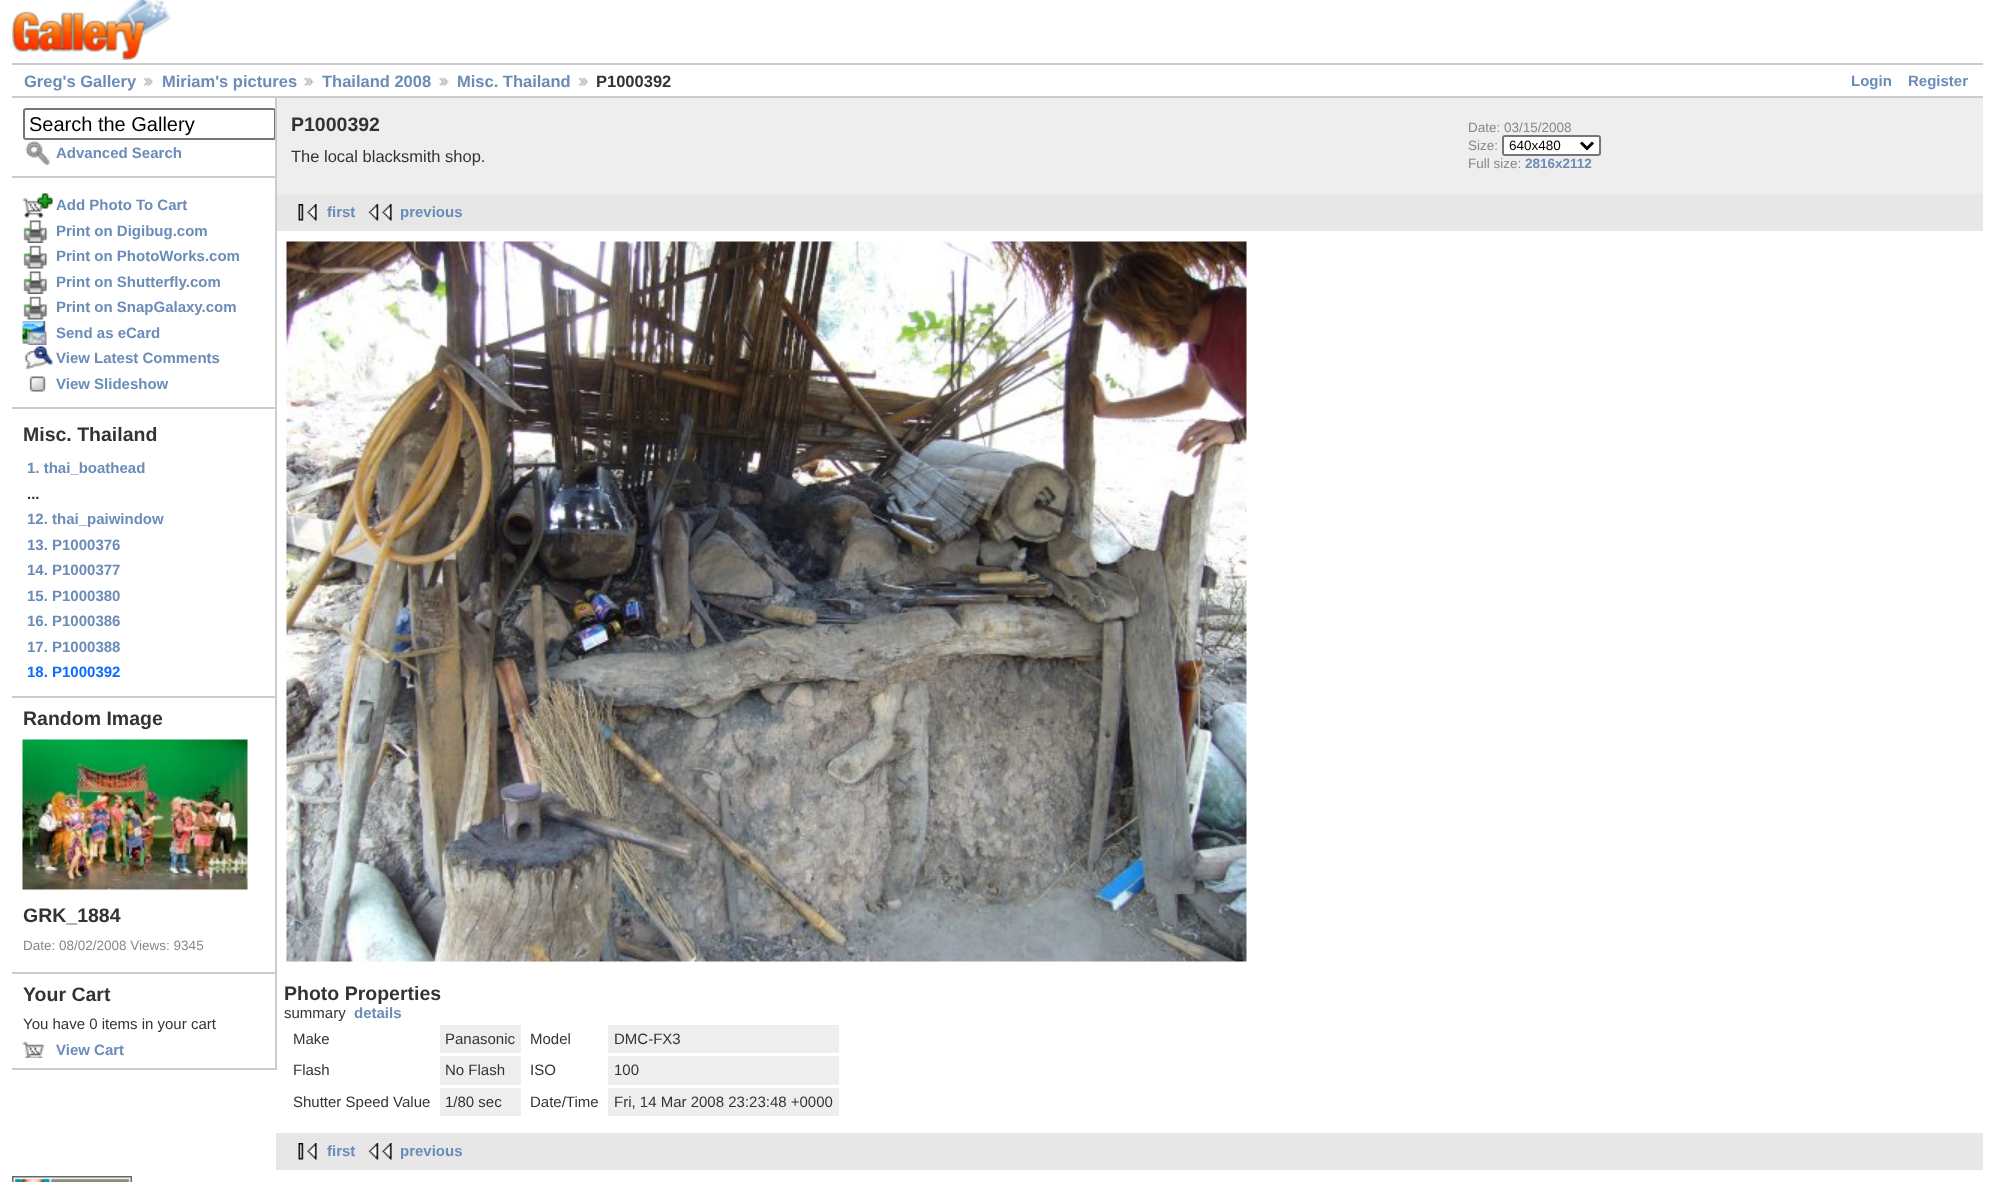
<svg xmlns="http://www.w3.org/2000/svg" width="1994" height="1182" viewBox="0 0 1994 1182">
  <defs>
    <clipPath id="clip1"><path d="M12 98h263v972H12z"/></clipPath>
  </defs>
  <rect width="100%" height="100%" fill="#fff"/>
  <image x="12" y="0" width="159" height="60" href="img/1.png"/>
  <path d="M12 63h1971v2H12z" fill="#ccc"/>
  <path d="M12 96h1971v2H12z" fill="#ccc"/>
  <image x="143" y="77" width="11" height="9" href="img/2.png"/>
  <image x="304" y="77" width="10" height="9" href="img/3.png"/>
  <image x="439" y="77" width="10" height="9" href="img/4.png"/>
  <image x="578" y="77" width="11" height="9" href="img/5.png"/>
  <path d="M275 98h2v972H275z" fill="#ccc"/>
  <path d="M12 176h263v2H12z" fill="#ccc"/>
  <g clip-path="url(#clip1)">
    <rect x="24" y="109" width="251" height="30" rx="2" fill="none" stroke="#767676" stroke-width="2"/>
  </g>
  <image x="25" y="141" width="25" height="24" href="img/6.png"/>
  <path d="M12 407h263v2H12z" fill="#ccc"/>
  <image x="22" y="193" width="31" height="25" href="img/7.png"/>
  <image x="23" y="220" width="25" height="23" href="img/8.png"/>
  <image x="23" y="245" width="25" height="24" href="img/9.png"/>
  <image x="23" y="271" width="25" height="23" href="img/8.png"/>
  <image x="23" y="296" width="25" height="24" href="img/9.png"/>
  <image x="22" y="321" width="25" height="24" href="img/10.png"/>
  <image x="24" y="346" width="29" height="24" href="img/11.png"/>
  <image x="29" y="376" width="17" height="16" href="img/12.png"/>
  <path d="M12 696h263v2H12z" fill="#ccc"/>
  <path d="M12 972h263v2H12z" fill="#ccc"/>
  <image x="22" y="739" width="226" height="151" href="img/13.png"/>
  <path d="M12 1068h263v2H12z" fill="#ccc"/>
  <image x="22" y="1041" width="22" height="17" href="img/14.png"/>
  <path d="M277 98h1706v96H277z" fill="#eee"/>
  <rect x="1503" y="136" width="97" height="19" rx="2" fill="#fff" stroke="#767676" stroke-width="2"/>
  <path d="M1581 142.5L1587 148.5L1593 142.5" fill="none" stroke="#000" stroke-width="3"/>
  <path d="M277 194h1706v37H277z" fill="#e7e7e7"/>
  <image x="298" y="204" width="19" height="17" href="img/15.png"/>
  <image x="368" y="204" width="24" height="17" href="img/16.png"/>
  <image x="286" y="241" width="961" height="721" href="img/17.png"/>
  <path d="M440 1025h81v28H440z" fill="#eee"/>
  <path d="M608 1025h231v28H608z" fill="#eee"/>
  <path d="M440 1056h81v29H440z" fill="#eee"/>
  <path d="M608 1056h231v29H608z" fill="#eee"/>
  <path d="M440 1088h81v28H440z" fill="#eee"/>
  <path d="M608 1088h231v28H608z" fill="#eee"/>
  <path d="M276 1133h1707v37H276z" fill="#e7e7e7"/>
  <image x="298" y="1143" width="19" height="17" href="img/15.png"/>
  <image x="368" y="1143" width="24" height="17" href="img/16.png"/>
  <image x="12" y="1176" width="120" height="6" href="img/18.png"/>
  <g font-family="Liberation Sans" font-size="16.5" font-weight="bold" fill="#6b8cb7">
    <text x="24" y="87">Greg's Gallery</text>
    <text x="162" y="87">Miriam's pictures</text>
    <text x="322" y="87">Thailand 2008</text>
    <text x="457" y="87">Misc. Thailand</text>
  </g>
  <text x="596" y="87" font-family="Liberation Sans" font-size="16.5" font-weight="bold" fill="#333">P1000392</text>
  <g font-family="Liberation Sans" font-size="15" font-weight="bold" fill="#6b8cb7">
    <text x="1851" y="86">Login</text>
    <text x="1908" y="86">Register</text>
  </g>
  <text x="29" y="131" font-family="Liberation Sans" font-size="20" fill="#000">Search the Gallery</text>
  <g font-family="Liberation Sans" font-size="15" font-weight="bold" fill="#6b8cb7">
    <text x="56" y="158">Advanced Search</text>
    <text x="56" y="210">Add Photo To Cart</text>
    <text x="56" y="236">Print on Digibug.com</text>
    <text x="56" y="261">Print on PhotoWorks.com</text>
    <text x="56" y="287">Print on Shutterfly.com</text>
    <text x="56" y="312">Print on SnapGalaxy.com</text>
    <text x="56" y="338">Send as eCard</text>
    <text x="56" y="363">View Latest Comments</text>
    <text x="56" y="389">View Slideshow</text>
  </g>
  <text x="23" y="441" font-family="Liberation Sans" font-size="19.5" font-weight="bold" fill="#333">Misc. Thailand</text>
  <text x="27" y="473" font-family="Liberation Sans" font-size="15" font-weight="bold" fill="#6b8cb7">1. thai_boathead</text>
  <text x="27" y="499" font-family="Liberation Sans" font-size="15" font-weight="bold" fill="#333">...</text>
  <g font-family="Liberation Sans" font-size="15" font-weight="bold" fill="#6b8cb7">
    <text x="27" y="524">12. thai_paiwindow</text>
    <text x="27" y="550">13. P1000376</text>
    <text x="27" y="575">14. P1000377</text>
    <text x="27" y="601">15. P1000380</text>
    <text x="27" y="626">16. P1000386</text>
    <text x="27" y="652">17. P1000388</text>
  </g>
  <text x="27" y="677" font-family="Liberation Sans" font-size="15" font-weight="bold" fill="#0b6cff">18. P1000392</text>
  <g font-family="Liberation Sans" font-size="19.5" font-weight="bold" fill="#333">
    <text x="23" y="725">Random Image</text>
    <text x="23" y="922">GRK_1884</text>
  </g>
  <text x="23" y="950" font-family="Liberation Sans" font-size="13.5" fill="#888">Date: 08/02/2008 Views: 9345</text>
  <text x="23" y="1001" font-family="Liberation Sans" font-size="19.5" font-weight="bold" fill="#333">Your Cart</text>
  <text x="23" y="1029" font-family="Liberation Sans" font-size="15" fill="#333">You have 0 items in your cart</text>
  <text x="56" y="1055" font-family="Liberation Sans" font-size="15" font-weight="bold" fill="#6b8cb7">View Cart</text>
  <text x="291" y="131" font-family="Liberation Sans" font-size="19.5" font-weight="bold" fill="#333">P1000392</text>
  <text x="291" y="162" font-family="Liberation Sans" font-size="16.5" fill="#333">The local blacksmith shop.</text>
  <g font-family="Liberation Sans" font-size="13.5" fill="#888">
    <text x="1468" y="132">Date: 03/15/2008</text>
    <text x="1468" y="150">Size:</text>
  </g>
  <text x="1509" y="150" font-family="Liberation Sans" font-size="13.5" fill="#000">640x480</text>
  <text x="1468" y="168" font-family="Liberation Sans" font-size="13.5" fill="#888">Full size:</text>
  <text x="1525" y="168" font-family="Liberation Sans" font-size="13.5" font-weight="bold" fill="#6b8cb7">2816x2112</text>
  <g font-family="Liberation Sans" font-size="15" font-weight="bold" fill="#6b8cb7">
    <text x="327" y="217">first</text>
    <text x="400" y="217">previous</text>
  </g>
  <text x="284" y="1000" font-family="Liberation Sans" font-size="19.5" font-weight="bold" fill="#333">Photo Properties</text>
  <text x="284" y="1018" font-family="Liberation Sans" font-size="15" fill="#333">summary</text>
  <text x="354" y="1018" font-family="Liberation Sans" font-size="15" font-weight="bold" fill="#6b8cb7">details</text>
  <g font-family="Liberation Sans" font-size="15" fill="#333">
    <text x="293" y="1044">Make</text>
    <text x="445" y="1044">Panasonic</text>
    <text x="530" y="1044">Model</text>
    <text x="614" y="1044">DMC-FX3</text>
    <text x="293" y="1075">Flash</text>
    <text x="445" y="1075">No Flash</text>
    <text x="530" y="1075">ISO</text>
    <text x="614" y="1075">100</text>
    <text x="293" y="1107">Shutter Speed Value</text>
    <text x="445" y="1107">1/80 sec</text>
    <text x="530" y="1107">Date/Time</text>
    <text x="614" y="1107">Fri, 14 Mar 2008 23:23:48 +0000</text>
  </g>
  <g font-family="Liberation Sans" font-size="15" font-weight="bold" fill="#6b8cb7">
    <text x="327" y="1156">first</text>
    <text x="400" y="1156">previous</text>
  </g>
</svg>
